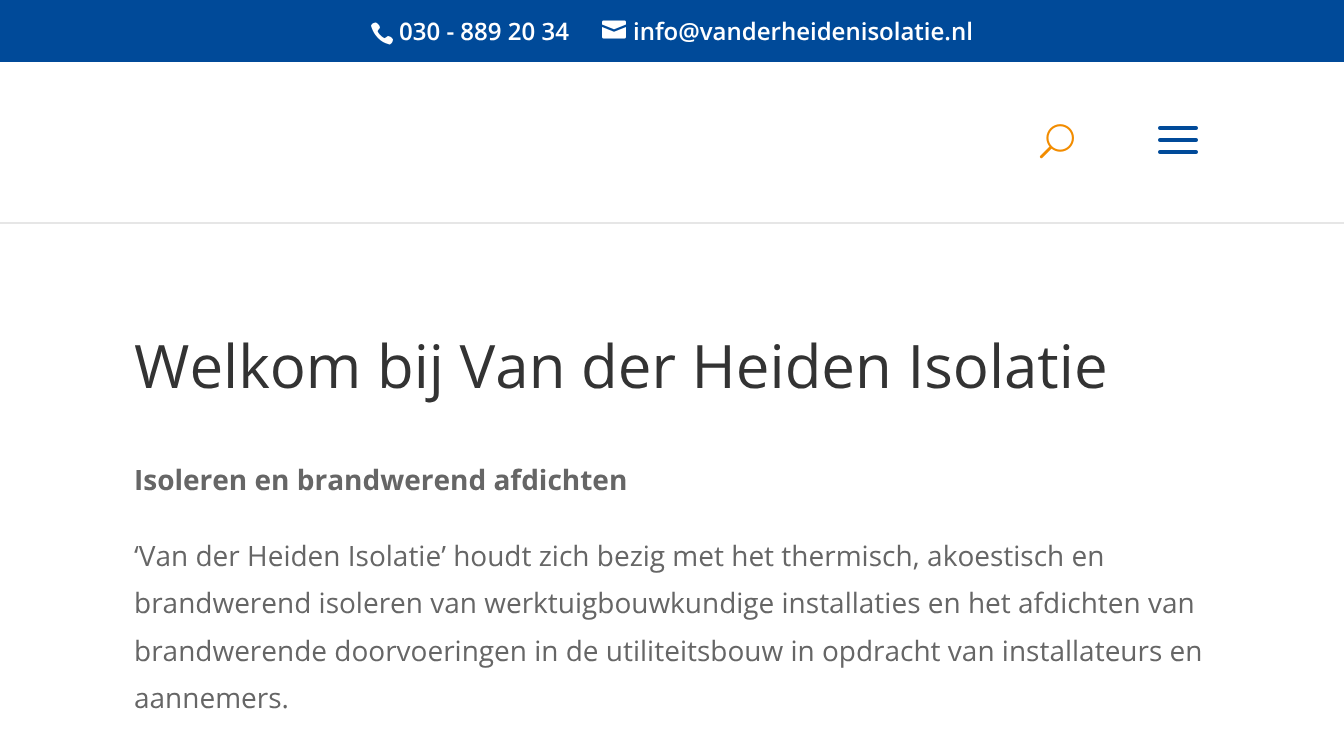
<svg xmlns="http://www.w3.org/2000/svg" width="1344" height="755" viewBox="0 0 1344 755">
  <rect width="100%" height="100%" fill="#004a99"/>
  <image x="371" y="22" width="22" height="23" href="img/1.png"/>
  <image x="602" y="20" width="24" height="19" href="img/2.png"/>
  <path d="M0 222h1344v2H0z" fill="#e6e6e6"/>
  <path d="M0 62h1344v160H0z" fill="#fff"/>
  <image x="1039" y="124" width="35" height="35" href="img/3.png"/>
  <image x="1158" y="126" width="40" height="28" href="img/4.png"/>
  <path d="M0 224h1344v531H0z" fill="#fff"/>
  <g font-family="Open Sans" font-size="24" font-weight="600" fill="#fff">
    <text x="399" y="40">030 - 889 20 34</text>
    <text x="633" y="40">info@vanderheidenisolatie.nl</text>
  </g>
  <text x="134" y="388" font-family="Open Sans" font-size="60" fill="#333">Welkom bij Van der Heiden Isolatie</text>
  <text x="134" y="490" font-family="Open Sans" font-size="28" font-weight="bold" fill="#666">Isoleren en brandwerend afdichten</text>
  <g font-family="Open Sans" font-size="28" fill="#666">
    <text x="134" y="566">‘Van der Heiden Isolatie’ houdt zich bezig met het thermisch, akoestisch en</text>
    <text x="134" y="613">brandwerend isoleren van werktuigbouwkundige installaties en het afdichten van</text>
    <text x="134" y="661">brandwerende doorvoeringen in de utiliteitsbouw in opdracht van installateurs en</text>
    <text x="134" y="708">aannemers.</text>
  </g>
</svg>
